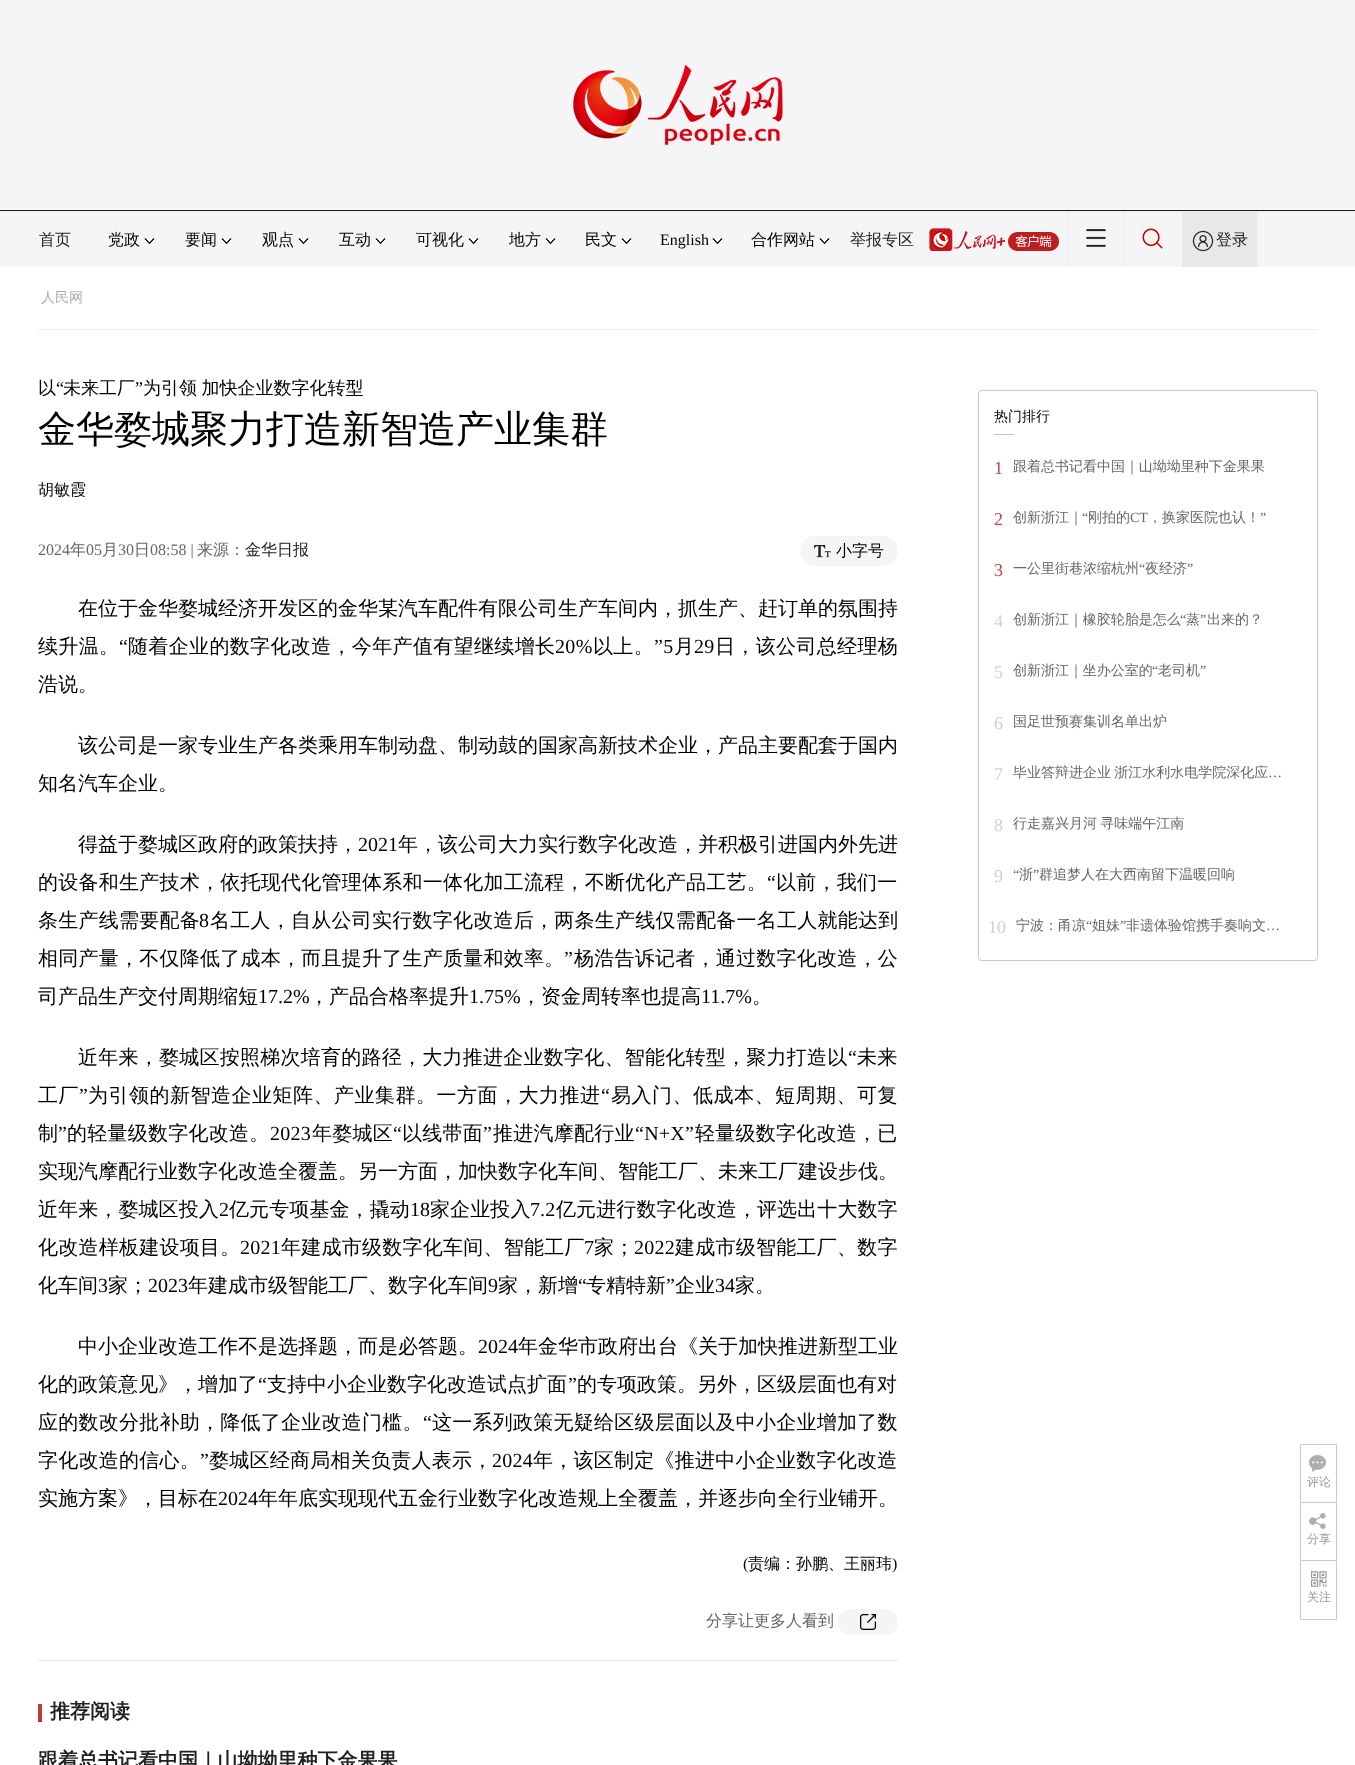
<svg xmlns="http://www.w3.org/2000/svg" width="1355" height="1765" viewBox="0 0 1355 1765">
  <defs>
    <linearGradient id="g1" gradientUnits="userSpaceOnUse" x1="35" y1="1708" x2="46" y2="1719"><stop offset="0" stop-color="#c53d3d"/><stop offset="0.49" stop-color="#c43a3a"/><stop offset="1" stop-color="#bb2d2d"/></linearGradient>
    <clipPath id="clip1"><path d="M1300 1444h37v58H1300z"/></clipPath>
    <clipPath id="clip2"><path d="M1300 1502h37v58H1300z"/></clipPath>
  </defs>
  <rect width="100%" height="100%" fill="#fff"/>
  <path d="M0 0h1355v210H0z" fill="#f5f5f7"/>
  <path d="M0 210h1355v1H0z" fill="#212121"/>
  <image x="573" y="65" width="210" height="80" href="img/1.png"/>
  <path d="M0 211h1355v1H0z" fill="#e9e9e9"/>
  <path d="M0 212h1355v55H0z" fill="#f5f5f7"/>
  <image x="144" y="238" width="11" height="6" href="img/2.png"/>
  <image x="221" y="238" width="11" height="6" href="img/2.png"/>
  <image x="298" y="238" width="11" height="6" href="img/2.png"/>
  <image x="375" y="238" width="11" height="6" href="img/2.png"/>
  <image x="468" y="238" width="11" height="6" href="img/2.png"/>
  <image x="545" y="238" width="11" height="6" href="img/2.png"/>
  <image x="621" y="238" width="11" height="6" href="img/2.png"/>
  <image x="712" y="238" width="11" height="6" href="img/2.png"/>
  <image x="819" y="238" width="11" height="6" href="img/2.png"/>
  <image x="929" y="228" width="130" height="23" href="img/3.png"/>
  <path d="M1123 212h1v55H1123z" fill="#ebebed"/>
  <path d="M1068 212h1v55H1068z" fill="#ebebed"/>
  <image x="1086" y="229" width="20" height="18" href="img/4.png"/>
  <image x="1142" y="228" width="22" height="22" href="img/5.png"/>
  <path d="M1182 212h75v55H1182z" fill="#e8e8ea"/>
  <image x="1192" y="230" width="22" height="22" href="img/6.png"/>
  <path d="M38 329h1280v1H38z" fill="#ececec"/>
  <rect x="800" y="536" width="98" height="30" rx="15" fill="#f5f5f7"/>
  <image x="814" y="545" width="17" height="13" href="img/7.png"/>
  <rect x="838" y="1609" width="60" height="26" rx="13" fill="#f5f5f7"/>
  <image x="860" y="1614" width="16" height="16" href="img/8.png"/>
  <path d="M38 1660h860v1H38z" fill="#ececec"/>
  <path d="M38 1704h4v18H38z" fill="url(#g1)"/>
  <rect x="978.5" y="390.5" width="339" height="570" rx="3.5" fill="none" stroke="#c9c9c9"/>
  <path d="M994 434h20v1H994z" fill="#c1c1c1"/>
  <g clip-path="url(#clip1)">
    <path d="M1300.5 1444.5h36v60H1300.5z" fill="none" stroke="#c9c9c9"/>
  </g>
  <image x="1309" y="1455" width="17" height="17" href="img/9.png"/>
  <g clip-path="url(#clip2)">
    <path d="M1300.5 1502.5h36v59H1300.5z" fill="none" stroke="#c9c9c9"/>
  </g>
  <image x="1309" y="1513" width="17" height="16" href="img/10.png"/>
  <path d="M1300.5 1560.5h36v59H1300.5z" fill="none" stroke="#c9c9c9"/>
  <image x="1311" y="1571" width="16" height="16" href="img/11.png"/>
  <text x="39" y="245" font-family="WenQuanYi Zen Hei" font-size="16" font-weight="500" fill="#212121">首页</text>
  <g font-family="WenQuanYi Zen Hei" font-size="16" font-weight="500" fill="#000">
    <text x="108" y="245">党政</text>
    <text x="185" y="245">要闻</text>
    <text x="262" y="245">观点</text>
    <text x="339" y="245">互动</text>
    <text x="416" y="245">可视化</text>
    <text x="509" y="245">地方</text>
    <text x="585" y="245">民文</text>
  </g>
  <text x="660" y="245" font-family="Liberation Serif" font-size="16" fill="#000">English</text>
  <text x="751" y="245" font-family="WenQuanYi Zen Hei" font-size="16" font-weight="500" fill="#000">合作网站</text>
  <g font-family="WenQuanYi Zen Hei" font-size="16" font-weight="500" fill="#212121">
    <text x="850" y="245">举报专区</text>
    <text x="1216" y="245">登录</text>
  </g>
  <text x="41" y="302" font-family="WenQuanYi Zen Hei" font-size="14" font-weight="500" fill="#adadad">人民网</text>
  <text x="38" y="394" font-family="WenQuanYi Zen Hei" font-size="18" font-weight="500" fill="#000">以</text>
  <text x="56" y="394" font-family="Liberation Serif" font-size="18" fill="#000">“</text>
  <text x="63" y="394" font-family="WenQuanYi Zen Hei" font-size="18" font-weight="500" fill="#000">未来工厂</text>
  <text x="135" y="394" font-family="Liberation Serif" font-size="18" fill="#000">”</text>
  <text x="143" y="394" word-spacing="-1" font-family="WenQuanYi Zen Hei" font-size="18" font-weight="500" fill="#000">为引领 加快企业数字化转型</text>
  <text x="38" y="442" font-family="WenQuanYi Zen Hei" font-size="38" font-weight="500" fill="#000">金华婺城聚力打造新智造产业集群</text>
  <text x="38" y="495" font-family="WenQuanYi Zen Hei" font-size="16" font-weight="500" fill="#000">胡敏霞</text>
  <text x="38" y="555" font-family="Liberation Serif" font-size="16" fill="#666">2024</text>
  <text x="70" y="555" font-family="WenQuanYi Zen Hei" font-size="16" font-weight="500" fill="#666">年</text>
  <text x="86" y="555" font-family="Liberation Serif" font-size="16" fill="#666">05</text>
  <text x="102" y="555" font-family="WenQuanYi Zen Hei" font-size="16" font-weight="500" fill="#666">月</text>
  <text x="118" y="555" font-family="Liberation Serif" font-size="16" fill="#666">30</text>
  <text x="134" y="555" font-family="WenQuanYi Zen Hei" font-size="16" font-weight="500" fill="#666">日</text>
  <text x="150" y="555" font-family="Liberation Serif" font-size="16" fill="#666">08:58 |</text>
  <text x="197" y="555" font-family="WenQuanYi Zen Hei" font-size="16" font-weight="500" fill="#666">来源：</text>
  <text x="245" y="555" font-family="WenQuanYi Zen Hei" font-size="16" font-weight="500" fill="#212121">金华日报</text>
  <text x="836" y="556" font-family="WenQuanYi Zen Hei" font-size="16" font-weight="500" fill="#000">小字号</text>
  <text x="78" y="615" font-family="WenQuanYi Zen Hei" font-size="20" font-weight="500" fill="#000">在位于金华婺城经济开发区的金华某汽车配件有限公司生产车间内，抓生产、赶订单的氛围持</text>
  <text x="38" y="653" font-family="WenQuanYi Zen Hei" font-size="20" font-weight="500" letter-spacing="0.35" fill="#000">续升温。</text>
  <text x="119" y="653" font-family="Liberation Serif" font-size="20" letter-spacing="0.35" fill="#000">“</text>
  <text x="128" y="653" font-family="WenQuanYi Zen Hei" font-size="20" font-weight="500" letter-spacing="0.35" fill="#000">随着企业的数字化改造，今年产值有望继续增长</text>
  <text x="555" y="653" font-family="Liberation Serif" font-size="20" letter-spacing="0.35" fill="#000">20%</text>
  <text x="593" y="653" font-family="WenQuanYi Zen Hei" font-size="20" font-weight="500" letter-spacing="0.35" fill="#000">以上。</text>
  <text x="654" y="653" font-family="Liberation Serif" font-size="20" letter-spacing="0.35" fill="#000">”5</text>
  <text x="674" y="653" font-family="WenQuanYi Zen Hei" font-size="20" font-weight="500" letter-spacing="0.35" fill="#000">月</text>
  <text x="694" y="653" font-family="Liberation Serif" font-size="20" letter-spacing="0.35" fill="#000">29</text>
  <text x="715" y="653" font-family="WenQuanYi Zen Hei" font-size="20" font-weight="500" letter-spacing="0.35" fill="#000">日，该公司总经理杨</text>
  <g font-family="WenQuanYi Zen Hei" font-size="20" font-weight="500" fill="#000">
    <text x="38" y="691">浩说。</text>
    <text x="78" y="752">该公司是一家专业生产各类乘用车制动盘、制动鼓的国家高新技术企业，产品主要配套于国内</text>
    <text x="38" y="790">知名汽车企业。</text>
    <text x="78" y="851">得益于婺城区政府的政策扶持，</text>
  </g>
  <text x="358" y="851" font-family="Liberation Serif" font-size="20" fill="#000">2021</text>
  <text x="398" y="851" font-family="WenQuanYi Zen Hei" font-size="20" font-weight="500" fill="#000">年，该公司大力实行数字化改造，并积极引进国内外先进</text>
  <text x="38" y="889" font-family="WenQuanYi Zen Hei" font-size="20" font-weight="500" letter-spacing="0.25" fill="#000">的设备和生产技术，依托现代化管理体系和一体化加工流程，不断优化产品工艺。</text>
  <text x="767" y="889" font-family="Liberation Serif" font-size="20" letter-spacing="0.25" fill="#000">“</text>
  <g font-family="WenQuanYi Zen Hei" font-size="20" font-weight="500" letter-spacing="0.25" fill="#000">
    <text x="776" y="889">以前，我们一</text>
    <text x="38" y="927">条生产线需要配备</text>
  </g>
  <text x="199" y="927" font-family="Liberation Serif" font-size="20" letter-spacing="0.25" fill="#000">8</text>
  <g font-family="WenQuanYi Zen Hei" font-size="20" font-weight="500" letter-spacing="0.25" fill="#000">
    <text x="210" y="927">名工人，自从公司实行数字化改造后，两条生产线仅需配备一名工人就能达到</text>
    <text x="38" y="965">相同产量，不仅降低了成本，而且提升了生产质量和效率。</text>
  </g>
  <text x="564" y="965" font-family="Liberation Serif" font-size="20" letter-spacing="0.25" fill="#000">”</text>
  <text x="574" y="965" font-family="WenQuanYi Zen Hei" font-size="20" font-weight="500" letter-spacing="0.25" fill="#000">杨浩告诉记者，通过数字化改造，公</text>
  <text x="38" y="1003" font-family="WenQuanYi Zen Hei" font-size="20" font-weight="500" fill="#000">司产品生产交付周期缩短</text>
  <text x="258" y="1003" font-family="Liberation Serif" font-size="20" fill="#000">17.2%</text>
  <text x="309" y="1003" font-family="WenQuanYi Zen Hei" font-size="20" font-weight="500" fill="#000">，产品合格率提升</text>
  <text x="469" y="1003" font-family="Liberation Serif" font-size="20" fill="#000">1.75%</text>
  <text x="521" y="1003" font-family="WenQuanYi Zen Hei" font-size="20" font-weight="500" fill="#000">，资金周转率也提高</text>
  <text x="701" y="1003" font-family="Liberation Serif" font-size="20" fill="#000">11.7%</text>
  <text x="752" y="1003" font-family="WenQuanYi Zen Hei" font-size="20" font-weight="500" fill="#000">。</text>
  <text x="78" y="1064" font-family="WenQuanYi Zen Hei" font-size="20" font-weight="500" letter-spacing="0.25" fill="#000">近年来，婺城区按照梯次培育的路径，大力推进企业数字化、智能化转型，聚力打造以</text>
  <text x="848" y="1064" font-family="Liberation Serif" font-size="20" letter-spacing="0.25" fill="#000">“</text>
  <text x="857" y="1064" font-family="WenQuanYi Zen Hei" font-size="20" font-weight="500" letter-spacing="0.25" fill="#000">未来</text>
  <text x="38" y="1102" font-family="WenQuanYi Zen Hei" font-size="20" font-weight="500" letter-spacing="0.5" fill="#000">工厂</text>
  <text x="79" y="1102" font-family="Liberation Serif" font-size="20" letter-spacing="0.5" fill="#000">”</text>
  <text x="88" y="1102" font-family="WenQuanYi Zen Hei" font-size="20" font-weight="500" letter-spacing="0.5" fill="#000">为引领的新智造企业矩阵、产业集群。一方面，大力推进</text>
  <text x="601" y="1102" font-family="Liberation Serif" font-size="20" letter-spacing="0.5" fill="#000">“</text>
  <text x="611" y="1102" font-family="WenQuanYi Zen Hei" font-size="20" font-weight="500" letter-spacing="0.5" fill="#000">易入门、低成本、短周期、可复</text>
  <text x="38" y="1140" font-family="WenQuanYi Zen Hei" font-size="20" font-weight="500" letter-spacing="0.25" fill="#000">制</text>
  <text x="58" y="1140" font-family="Liberation Serif" font-size="20" letter-spacing="0.25" fill="#000">”</text>
  <text x="67" y="1140" font-family="WenQuanYi Zen Hei" font-size="20" font-weight="500" letter-spacing="0.25" fill="#000">的轻量级数字化改造。</text>
  <text x="270" y="1140" font-family="Liberation Serif" font-size="20" letter-spacing="0.25" fill="#000">2023</text>
  <text x="312" y="1140" font-family="WenQuanYi Zen Hei" font-size="20" font-weight="500" letter-spacing="0.25" fill="#000">年婺城区</text>
  <text x="393" y="1140" font-family="Liberation Serif" font-size="20" letter-spacing="0.25" fill="#000">“</text>
  <text x="402" y="1140" font-family="WenQuanYi Zen Hei" font-size="20" font-weight="500" letter-spacing="0.25" fill="#000">以线带面</text>
  <text x="483" y="1140" font-family="Liberation Serif" font-size="20" letter-spacing="0.25" fill="#000">”</text>
  <text x="493" y="1140" font-family="WenQuanYi Zen Hei" font-size="20" font-weight="500" letter-spacing="0.25" fill="#000">推进汽摩配行业</text>
  <text x="635" y="1140" font-family="Liberation Serif" font-size="20" letter-spacing="0.25" fill="#000">“N+X”</text>
  <text x="695" y="1140" font-family="WenQuanYi Zen Hei" font-size="20" font-weight="500" letter-spacing="0.25" fill="#000">轻量级数字化改造，已</text>
  <text x="38" y="1178" font-family="WenQuanYi Zen Hei" font-size="20" font-weight="500" fill="#000">实现汽摩配行业数字化改造全覆盖。另一方面，加快数字化车间、智能工厂、未来工厂建设步伐。</text>
  <text x="38" y="1216" font-family="WenQuanYi Zen Hei" font-size="20" font-weight="500" letter-spacing="0.1" fill="#000">近年来，婺城区投入</text>
  <text x="219" y="1216" font-family="Liberation Serif" font-size="20" letter-spacing="0.1" fill="#000">2</text>
  <text x="229" y="1216" font-family="WenQuanYi Zen Hei" font-size="20" font-weight="500" letter-spacing="0.1" fill="#000">亿元专项基金，撬动</text>
  <text x="410" y="1216" font-family="Liberation Serif" font-size="20" letter-spacing="0.1" fill="#000">18</text>
  <text x="430" y="1216" font-family="WenQuanYi Zen Hei" font-size="20" font-weight="500" letter-spacing="0.1" fill="#000">家企业投入</text>
  <text x="530" y="1216" font-family="Liberation Serif" font-size="20" letter-spacing="0.1" fill="#000">7.2</text>
  <text x="556" y="1216" font-family="WenQuanYi Zen Hei" font-size="20" font-weight="500" letter-spacing="0.1" fill="#000">亿元进行数字化改造，评选出十大数字</text>
  <text x="38" y="1254" font-family="WenQuanYi Zen Hei" font-size="20" font-weight="500" letter-spacing="0.25" fill="#000">化改造样板建设项目。</text>
  <text x="240" y="1254" font-family="Liberation Serif" font-size="20" letter-spacing="0.25" fill="#000">2021</text>
  <text x="281" y="1254" font-family="WenQuanYi Zen Hei" font-size="20" font-weight="500" letter-spacing="0.25" fill="#000">年建成市级数字化车间、智能工厂</text>
  <text x="584" y="1254" font-family="Liberation Serif" font-size="20" letter-spacing="0.25" fill="#000">7</text>
  <text x="594" y="1254" font-family="WenQuanYi Zen Hei" font-size="20" font-weight="500" letter-spacing="0.25" fill="#000">家；</text>
  <text x="634" y="1254" font-family="Liberation Serif" font-size="20" letter-spacing="0.25" fill="#000">2022</text>
  <text x="675" y="1254" font-family="WenQuanYi Zen Hei" font-size="20" font-weight="500" letter-spacing="0.25" fill="#000">建成市级智能工厂、数字</text>
  <text x="38" y="1292" font-family="WenQuanYi Zen Hei" font-size="20" font-weight="500" fill="#000">化车间</text>
  <text x="98" y="1292" font-family="Liberation Serif" font-size="20" fill="#000">3</text>
  <text x="108" y="1292" font-family="WenQuanYi Zen Hei" font-size="20" font-weight="500" fill="#000">家；</text>
  <text x="148" y="1292" font-family="Liberation Serif" font-size="20" fill="#000">2023</text>
  <text x="188" y="1292" font-family="WenQuanYi Zen Hei" font-size="20" font-weight="500" fill="#000">年建成市级智能工厂、数字化车间</text>
  <text x="488" y="1292" font-family="Liberation Serif" font-size="20" fill="#000">9</text>
  <text x="498" y="1292" font-family="WenQuanYi Zen Hei" font-size="20" font-weight="500" fill="#000">家，新增</text>
  <text x="578" y="1292" font-family="Liberation Serif" font-size="20" fill="#000">“</text>
  <text x="586" y="1292" font-family="WenQuanYi Zen Hei" font-size="20" font-weight="500" fill="#000">专精特新</text>
  <text x="666" y="1292" font-family="Liberation Serif" font-size="20" fill="#000">”</text>
  <text x="675" y="1292" font-family="WenQuanYi Zen Hei" font-size="20" font-weight="500" fill="#000">企业</text>
  <text x="715" y="1292" font-family="Liberation Serif" font-size="20" fill="#000">34</text>
  <g font-family="WenQuanYi Zen Hei" font-size="20" font-weight="500" fill="#000">
    <text x="735" y="1292">家。</text>
    <text x="78" y="1353">中小企业改造工作不是选择题，而是必答题。</text>
  </g>
  <text x="478" y="1353" font-family="Liberation Serif" font-size="20" fill="#000">2024</text>
  <g font-family="WenQuanYi Zen Hei" font-size="20" font-weight="500" fill="#000">
    <text x="518" y="1353">年金华市政府出台《关于加快推进新型工业</text>
    <text x="38" y="1391">化的政策意见》，增加了</text>
  </g>
  <text x="258" y="1391" font-family="Liberation Serif" font-size="20" fill="#000">“</text>
  <text x="267" y="1391" font-family="WenQuanYi Zen Hei" font-size="20" font-weight="500" fill="#000">支持中小企业数字化改造试点扩面</text>
  <text x="568" y="1391" font-family="Liberation Serif" font-size="20" fill="#000">”</text>
  <text x="577" y="1391" font-family="WenQuanYi Zen Hei" font-size="20" font-weight="500" fill="#000">的专项政策。另外，区级层面也有对</text>
  <text x="38" y="1429" font-family="WenQuanYi Zen Hei" font-size="20" font-weight="500" letter-spacing="0.25" fill="#000">应的数改分批补助，降低了企业改造门槛。</text>
  <text x="423" y="1429" font-family="Liberation Serif" font-size="20" letter-spacing="0.25" fill="#000">“</text>
  <g font-family="WenQuanYi Zen Hei" font-size="20" font-weight="500" letter-spacing="0.25" fill="#000">
    <text x="432" y="1429">这一系列政策无疑给区级层面以及中小企业增加了数</text>
    <text x="38" y="1467">字化改造的信心。</text>
  </g>
  <text x="200" y="1467" font-family="Liberation Serif" font-size="20" letter-spacing="0.25" fill="#000">”</text>
  <text x="209" y="1467" font-family="WenQuanYi Zen Hei" font-size="20" font-weight="500" letter-spacing="0.25" fill="#000">婺城区经商局相关负责人表示，</text>
  <text x="492" y="1467" font-family="Liberation Serif" font-size="20" letter-spacing="0.25" fill="#000">2024</text>
  <text x="533" y="1467" font-family="WenQuanYi Zen Hei" font-size="20" font-weight="500" letter-spacing="0.25" fill="#000">年，该区制定《推进中小企业数字化改造</text>
  <text x="38" y="1505" font-family="WenQuanYi Zen Hei" font-size="20" font-weight="500" fill="#000">实施方案》，目标在</text>
  <text x="218" y="1505" font-family="Liberation Serif" font-size="20" fill="#000">2024</text>
  <text x="258" y="1505" font-family="WenQuanYi Zen Hei" font-size="20" font-weight="500" fill="#000">年年底实现现代五金行业数字化改造规上全覆盖，并逐步向全行业铺开。</text>
  <text x="743" y="1569" font-family="Liberation Serif" font-size="16" fill="#000">(</text>
  <text x="748" y="1569" font-family="WenQuanYi Zen Hei" font-size="16" font-weight="500" fill="#000">责编：孙鹏、王丽玮</text>
  <text x="892" y="1569" font-family="Liberation Serif" font-size="16" fill="#000">)</text>
  <text x="706" y="1626" font-family="WenQuanYi Zen Hei" font-size="16" font-weight="500" fill="#666">分享让更多人看到</text>
  <g font-family="WenQuanYi Zen Hei" font-size="20" font-weight="bold" fill="#212121">
    <text x="50" y="1718">推荐阅读</text>
    <text x="38" y="1767">跟着总书记看中国｜山坳坳里种下金果果</text>
  </g>
  <text x="994" y="421" font-family="WenQuanYi Zen Hei" font-size="14" font-weight="500" fill="#000">热门排行</text>
  <text x="994" y="474" font-family="Liberation Serif" font-size="18" fill="#c54242">1</text>
  <text x="1013" y="471" font-family="WenQuanYi Zen Hei" font-size="14" font-weight="500" fill="#666">跟着总书记看中国｜山坳坳里种下金果果</text>
  <text x="994" y="525" font-family="Liberation Serif" font-size="18" fill="#c54242">2</text>
  <text x="1013" y="522" font-family="WenQuanYi Zen Hei" font-size="14" font-weight="500" fill="#666">创新浙江｜</text>
  <text x="1082" y="522" font-family="Liberation Serif" font-size="14" fill="#666">“</text>
  <text x="1088" y="522" font-family="WenQuanYi Zen Hei" font-size="14" font-weight="500" fill="#666">刚拍的</text>
  <text x="1130" y="522" font-family="Liberation Serif" font-size="14" fill="#666">CT</text>
  <text x="1148" y="522" font-family="WenQuanYi Zen Hei" font-size="14" font-weight="500" fill="#666">，换家医院也认！</text>
  <text x="1260" y="522" font-family="Liberation Serif" font-size="14" fill="#666">”</text>
  <text x="994" y="576" font-family="Liberation Serif" font-size="18" fill="#c54242">3</text>
  <text x="1013" y="573" font-family="WenQuanYi Zen Hei" font-size="14" font-weight="500" fill="#666">一公里街巷浓缩杭州</text>
  <text x="1139" y="573" font-family="Liberation Serif" font-size="14" fill="#666">“</text>
  <text x="1145" y="573" font-family="WenQuanYi Zen Hei" font-size="14" font-weight="500" fill="#666">夜经济</text>
  <text x="1187" y="573" font-family="Liberation Serif" font-size="14" fill="#666">”</text>
  <text x="994" y="627" font-family="Liberation Serif" font-size="18" fill="#d0d0d0">4</text>
  <text x="1013" y="624" font-family="WenQuanYi Zen Hei" font-size="14" font-weight="500" fill="#666">创新浙江｜橡胶轮胎是怎么</text>
  <text x="1180" y="624" font-family="Liberation Serif" font-size="14" fill="#666">“</text>
  <text x="1186" y="624" font-family="WenQuanYi Zen Hei" font-size="14" font-weight="500" fill="#666">蒸</text>
  <text x="1200" y="624" font-family="Liberation Serif" font-size="14" fill="#666">”</text>
  <text x="1207" y="624" font-family="WenQuanYi Zen Hei" font-size="14" font-weight="500" fill="#666">出来的？</text>
  <text x="994" y="678" font-family="Liberation Serif" font-size="18" fill="#d0d0d0">5</text>
  <text x="1013" y="675" font-family="WenQuanYi Zen Hei" font-size="14" font-weight="500" fill="#666">创新浙江｜坐办公室的</text>
  <text x="1152" y="675" font-family="Liberation Serif" font-size="14" fill="#666">“</text>
  <text x="1158" y="675" font-family="WenQuanYi Zen Hei" font-size="14" font-weight="500" fill="#666">老司机</text>
  <text x="1200" y="675" font-family="Liberation Serif" font-size="14" fill="#666">”</text>
  <text x="994" y="729" font-family="Liberation Serif" font-size="18" fill="#d0d0d0">6</text>
  <text x="1013" y="726" font-family="WenQuanYi Zen Hei" font-size="14" font-weight="500" fill="#666">国足世预赛集训名单出炉</text>
  <text x="994" y="780" font-family="Liberation Serif" font-size="18" fill="#d0d0d0">7</text>
  <text x="1013" y="777" word-spacing="-1" font-family="WenQuanYi Zen Hei" font-size="14" font-weight="500" fill="#666">毕业答辩进企业 浙江水利水电学院深化应</text>
  <text x="1268" y="777" font-family="Liberation Serif" font-size="14" fill="#666">…</text>
  <text x="994" y="831" font-family="Liberation Serif" font-size="18" fill="#d0d0d0">8</text>
  <text x="1013" y="828" word-spacing="-1" font-family="WenQuanYi Zen Hei" font-size="14" font-weight="500" fill="#666">行走嘉兴月河 寻味端午江南</text>
  <text x="994" y="882" font-family="Liberation Serif" font-size="18" fill="#d0d0d0">9</text>
  <text x="1013" y="879" font-family="Liberation Serif" font-size="14" fill="#666">“</text>
  <text x="1019" y="879" font-family="WenQuanYi Zen Hei" font-size="14" font-weight="500" fill="#666">浙</text>
  <text x="1033" y="879" font-family="Liberation Serif" font-size="14" fill="#666">”</text>
  <text x="1039" y="879" font-family="WenQuanYi Zen Hei" font-size="14" font-weight="500" fill="#666">群追梦人在大西南留下温暖回响</text>
  <text x="988" y="933" font-family="Liberation Serif" font-size="18" fill="#d0d0d0">10</text>
  <text x="1016" y="930" font-family="WenQuanYi Zen Hei" font-size="14" font-weight="500" fill="#666">宁波：甬凉</text>
  <text x="1086" y="930" font-family="Liberation Serif" font-size="14" fill="#666">“</text>
  <text x="1092" y="930" font-family="WenQuanYi Zen Hei" font-size="14" font-weight="500" fill="#666">姐妹</text>
  <text x="1120" y="930" font-family="Liberation Serif" font-size="14" fill="#666">”</text>
  <text x="1126" y="930" font-family="WenQuanYi Zen Hei" font-size="14" font-weight="500" fill="#666">非遗体验馆携手奏响文</text>
  <text x="1266" y="930" font-family="Liberation Serif" font-size="14" fill="#666">…</text>
  <g font-family="WenQuanYi Zen Hei" font-size="12" font-weight="500" fill="#999">
    <text x="1307" y="1486">评论</text>
    <text x="1307" y="1543">分享</text>
    <text x="1307" y="1601">关注</text>
  </g>
</svg>
